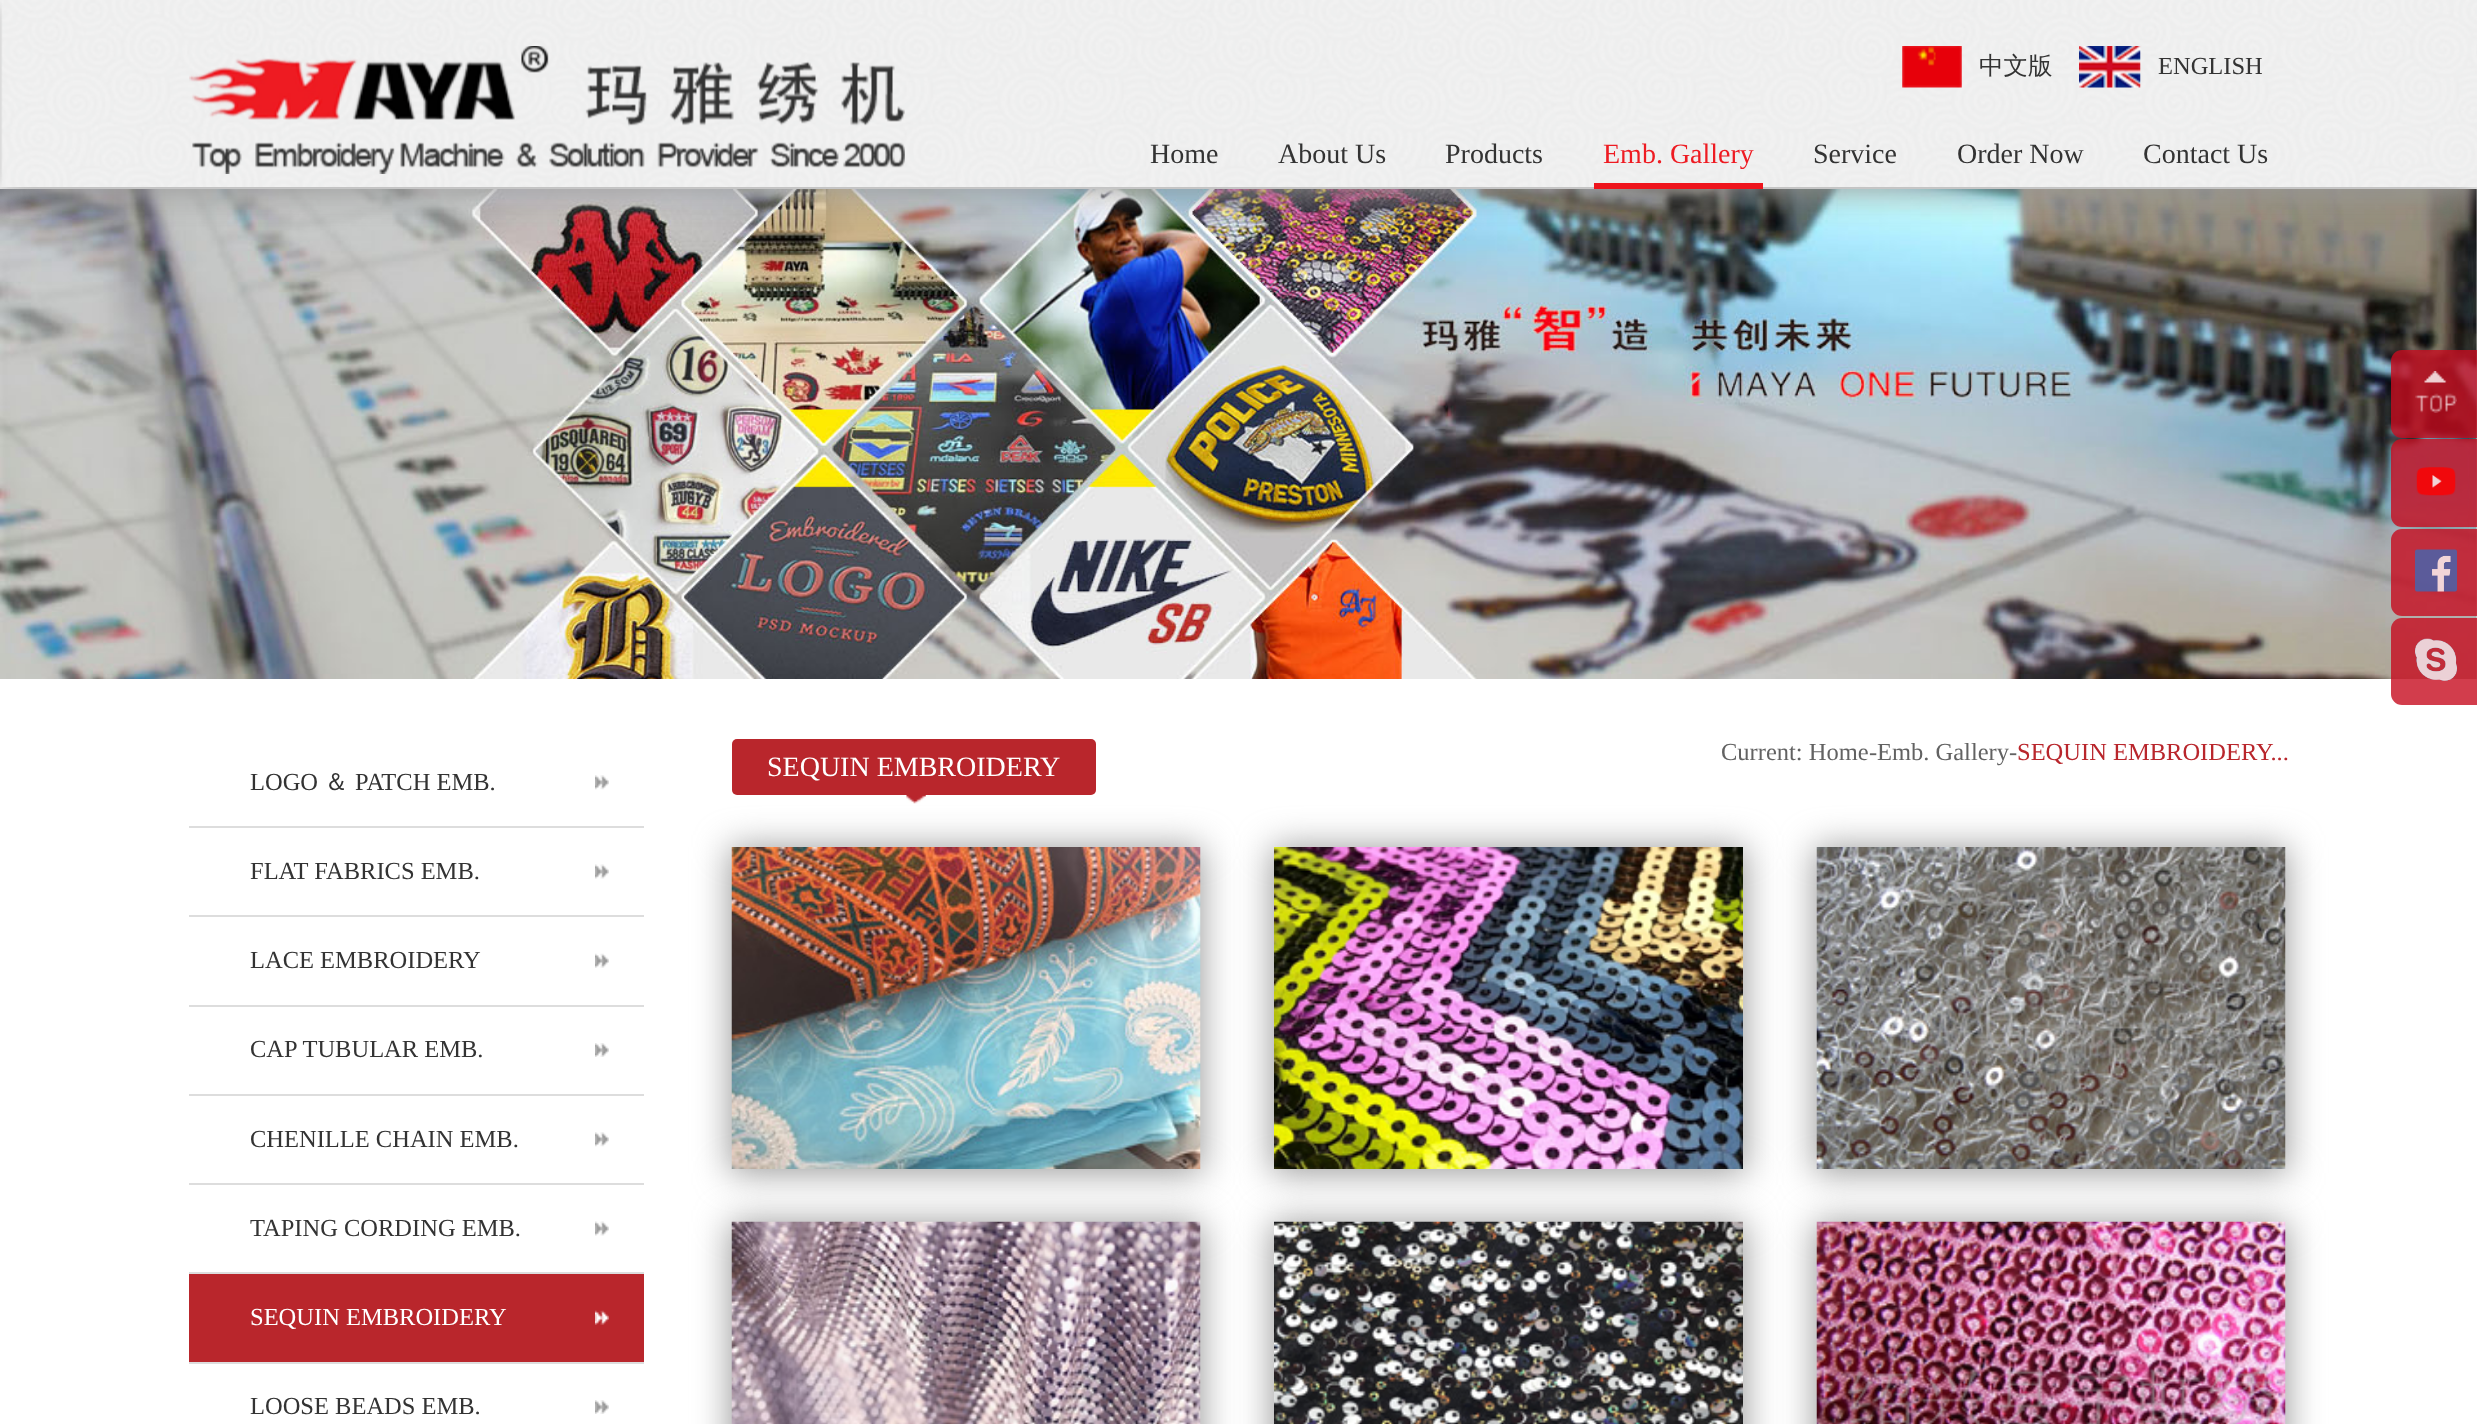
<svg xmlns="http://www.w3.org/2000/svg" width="2477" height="1424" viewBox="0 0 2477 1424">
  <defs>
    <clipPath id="clip1"><path d="M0 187h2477v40H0z"/></clipPath>
  </defs>
  <rect width="100%" height="100%" fill="#fff"/>
  <image x="0" y="189" width="2477" height="490" href="img/5.png"/>
  <g clip-path="url(#clip1)">
    <path d="M-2 0h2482v191H-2z" fill="#999" filter="blur(17.5px)"/>
  </g>
  <image x="0" y="0" width="2477" height="187" href="img/1.png"/>
  <image x="189" y="46" width="716" height="128" href="img/2.png"/>
  <image x="1902" y="46" width="60" height="42" href="img/3.png"/>
  <image x="2079" y="46" width="62" height="42" href="img/4.png"/>
  <path d="M1594 183h169v6H1594z" fill="#ee141c"/>
  <rect x="2391" y="350" width="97" height="88" rx="11" fill="#c70c1fcc"/>
  <image x="2415" y="371" width="42" height="42" href="img/6.png"/>
  <rect x="2391" y="439" width="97" height="88" rx="11" fill="#c70c1fcc"/>
  <image x="2416" y="467" width="40" height="29" href="img/7.png"/>
  <rect x="2391" y="529" width="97" height="87" rx="11" fill="#c70c1fcc"/>
  <image x="2415" y="549" width="42" height="43" href="img/8.png"/>
  <rect x="2391" y="618" width="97" height="87" rx="11" fill="#c70c1fcc"/>
  <image x="2415" y="638" width="42" height="43" href="img/9.png"/>
  <path d="M730 847h472v326H730z" fill="#999" filter="blur(17.5px)"/>
  <rect x="732" y="739" width="364" height="56" rx="5" fill="#b9262c"/>
  <image x="906" y="795" width="20" height="9" href="img/10.png"/>
  <path d="M730 1222h472v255H730z" fill="#999" filter="blur(17.5px)"/>
  <image x="731" y="847" width="470" height="322" href="img/11.png"/>
  <path d="M1272 847h473v326H1272z" fill="#999" filter="blur(17.5px)"/>
  <path d="M1272 1222h473v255H1272z" fill="#999" filter="blur(17.5px)"/>
  <image x="1274" y="847" width="469" height="322" href="img/12.png"/>
  <path d="M1815 847h472v326H1815z" fill="#999" filter="blur(17.5px)"/>
  <path d="M1815 1222h472v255H1815z" fill="#999" filter="blur(17.5px)"/>
  <image x="1816" y="847" width="470" height="322" href="img/13.png"/>
  <image x="731" y="1221" width="470" height="203" href="img/14.png"/>
  <image x="1274" y="1221" width="469" height="203" href="img/15.png"/>
  <image x="1816" y="1221" width="470" height="203" href="img/16.png"/>
  <image x="595" y="775" width="14" height="15" href="img/17.png"/>
  <path d="M189 826h455v2H189z" fill="#ddd"/>
  <image x="595" y="864" width="14" height="15" href="img/18.png"/>
  <path d="M189 915h455v2H189z" fill="#ddd"/>
  <image x="595" y="953" width="14" height="15" href="img/19.png"/>
  <path d="M189 1005h455v2H189z" fill="#ddd"/>
  <image x="595" y="1043" width="14" height="14" href="img/20.png"/>
  <path d="M189 1094h455v2H189z" fill="#ddd"/>
  <image x="595" y="1132" width="14" height="15" href="img/17.png"/>
  <path d="M189 1183h455v2H189z" fill="#ddd"/>
  <image x="595" y="1221" width="14" height="15" href="img/18.png"/>
  <path d="M189 1272h455v2H189z" fill="#ddd"/>
  <path d="M189 1274h455v88H189z" fill="#b9262c"/>
  <image x="595" y="1310" width="14" height="15" href="img/21.png"/>
  <path d="M189 1362h455v2H189z" fill="#ddd"/>
  <image x="595" y="1400" width="14" height="14" href="img/20.png"/>
  <text x="1979" y="74" font-family="WenQuanYi Zen Hei" font-size="24.5" font-weight="500" fill="#333">中文版</text>
  <text x="2158" y="74" font-family="Liberation Serif" font-size="24.5" fill="#333">ENGLISH</text>
  <g font-family="Liberation Serif" font-size="28" fill="#333">
    <text x="1150" y="163">Home</text>
    <text x="1278" y="163">About Us</text>
    <text x="1445" y="163">Products</text>
  </g>
  <text x="1603" y="163" font-family="Liberation Serif" font-size="28" fill="#ee1b22">Emb. Gallery</text>
  <g font-family="Liberation Serif" font-size="28" fill="#333">
    <text x="1813" y="163">Service</text>
    <text x="1957" y="163">Order Now</text>
    <text x="2143" y="163">Contact Us</text>
  </g>
  <text x="1721" y="760" font-family="Liberation Serif" font-size="24.5" fill="#626262">Current: Home</text>
  <text x="1869" y="760" font-family="Liberation Serif" font-size="24.5" font-style="italic" fill="#626262">-</text>
  <text x="1877" y="760" font-family="Liberation Serif" font-size="24.5" fill="#626262">Emb. Gallery</text>
  <text x="2009" y="760" font-family="Liberation Serif" font-size="24.5" font-style="italic" fill="#626262">-</text>
  <text x="2017" y="760" font-family="Liberation Serif" font-size="24.5" fill="#b9262c">SEQUIN EMBROIDERY...</text>
  <text x="767" y="776" font-family="Liberation Serif" font-size="28" fill="#fff">SEQUIN EMBROIDERY</text>
  <text x="250" y="790" font-family="Liberation Serif" font-size="24.5" fill="#333">LOGO</text>
  <text x="324" y="790" font-family="WenQuanYi Zen Hei" font-size="24.5" font-weight="500" fill="#333">＆</text>
  <g font-family="Liberation Serif" font-size="24.5" fill="#333">
    <text x="355" y="790">PATCH EMB.</text>
    <text x="250" y="879">FLAT FABRICS EMB.</text>
    <text x="250" y="968">LACE EMBROIDERY</text>
    <text x="250" y="1057">CAP TUBULAR EMB.</text>
    <text x="250" y="1147">CHENILLE CHAIN EMB.</text>
    <text x="250" y="1236">TAPING CORDING EMB.</text>
  </g>
  <text x="250" y="1325" font-family="Liberation Serif" font-size="24.5" fill="#fff">SEQUIN EMBROIDERY</text>
  <text x="250" y="1414" font-family="Liberation Serif" font-size="24.5" fill="#333">LOOSE BEADS EMB.</text>
</svg>
